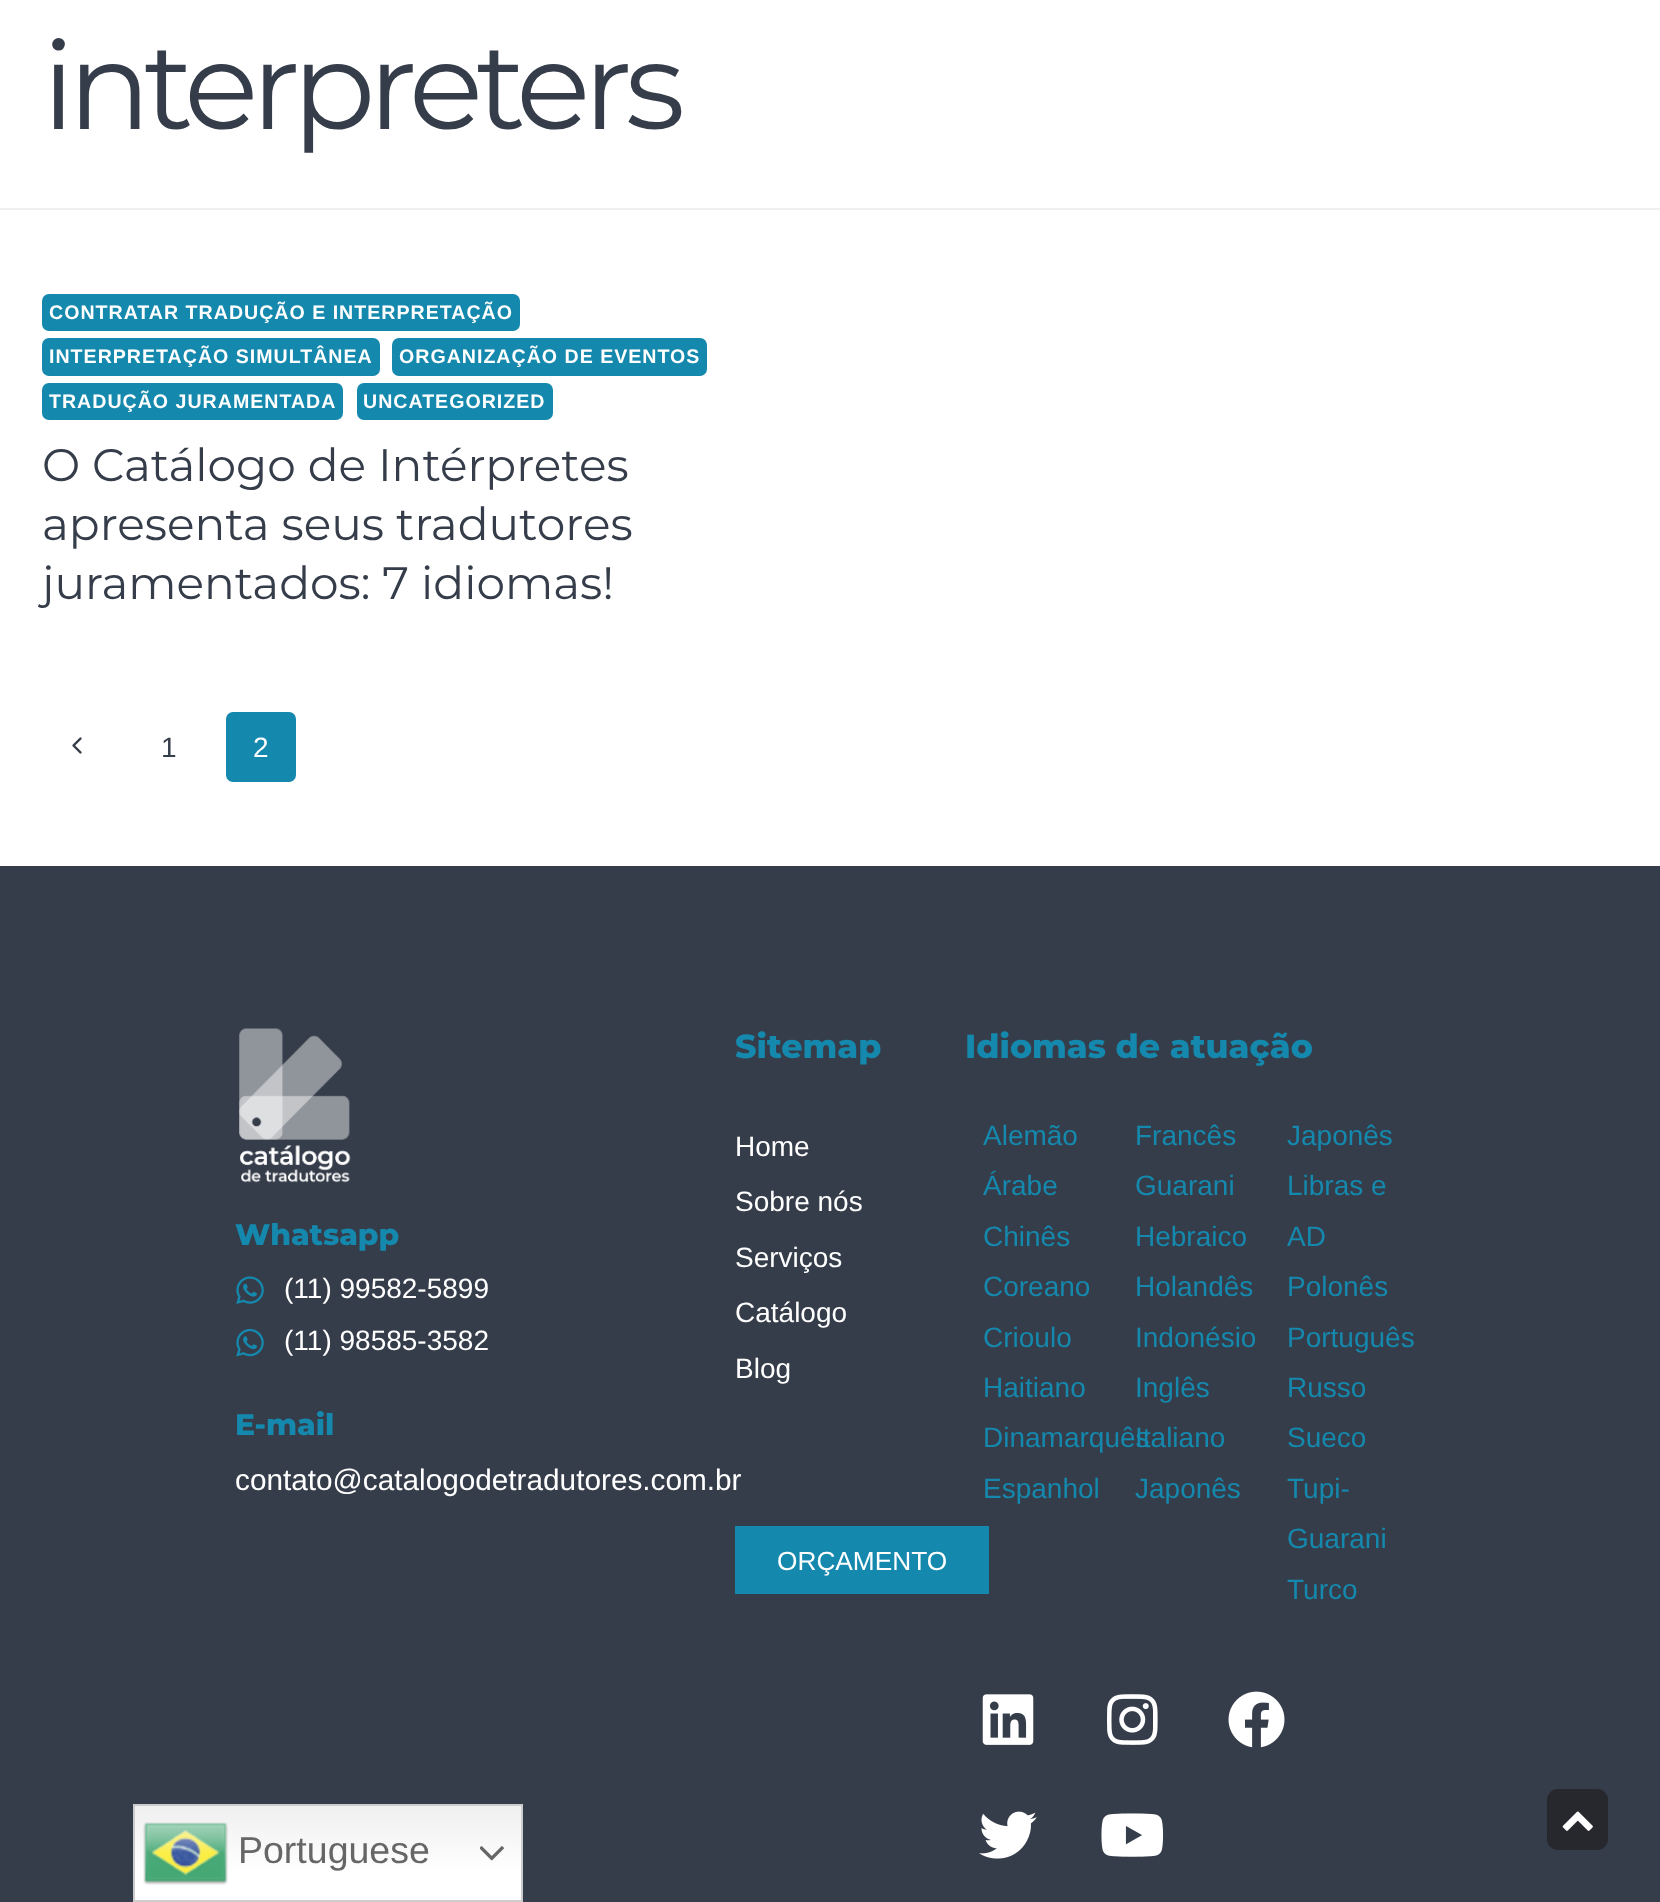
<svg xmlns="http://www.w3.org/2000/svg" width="1660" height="1902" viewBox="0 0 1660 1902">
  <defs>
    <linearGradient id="g1" gradientUnits="userSpaceOnUse" x1="328" y1="1804" x2="328" y2="1902"><stop offset="0" stop-color="#efefef"/><stop offset="0.7" stop-color="#fff"/></linearGradient>
  </defs>
  <rect width="100%" height="100%" fill="#fff"/>
  <path d="M0 208h1660v2H0z" fill="#f0f0f0"/>
  <rect x="42" y="294" width="478" height="37" rx="7" fill="#1588ad"/>
  <rect x="42" y="338" width="338" height="38" rx="7" fill="#1588ad"/>
  <rect x="392" y="338" width="315" height="38" rx="7" fill="#1588ad"/>
  <rect x="42" y="383" width="301" height="37" rx="7" fill="#1588ad"/>
  <rect x="357" y="383" width="196" height="37" rx="7" fill="#1588ad"/>
  <image x="72" y="737" width="10" height="17" href="img/1.png"/>
  <rect x="228" y="714" width="66" height="66" rx="5" fill="#1588ad" stroke="#1588ad" stroke-width="4"/>
  <path d="M0 866h1660v1036H0z" fill="#363d4a"/>
  <image x="239" y="1028" width="112" height="155" href="img/2.png"/>
  <image x="236" y="1276" width="28" height="28" href="img/3.png"/>
  <image x="236" y="1328" width="28" height="29" href="img/4.png"/>
  <path d="M735 1526h254v68H735z" fill="#1588ad"/>
  <image x="982" y="1694" width="52" height="51" href="img/5.png"/>
  <image x="1107" y="1694" width="51" height="51" href="img/6.png"/>
  <image x="1228" y="1691" width="57" height="57" href="img/7.png"/>
  <image x="979" y="1811" width="58" height="48" href="img/8.png"/>
  <image x="1101" y="1813" width="63" height="44" href="img/9.png"/>
  <rect x="1547" y="1789" width="61" height="61" rx="11" fill="#27272e"/>
  <image x="1562" y="1811" width="31" height="20" href="img/10.png"/>
  <path d="M135 1806h386v94H135z" fill="url(#g1)"/>
  <path d="M134 1805h388v96H134z" fill="none" stroke="#ccc" stroke-width="2"/>
  <image x="143" y="1822" width="85" height="63" href="img/11.png"/>
  <image x="480" y="1846" width="24" height="15" href="img/12.png"/>
  <text x="42" y="129" font-family="Montserrat" font-size="122.5" letter-spacing="-7" fill="#363d4a">interpreters</text>
  <g font-family="Liberation Sans" font-size="19.6" font-weight="bold" letter-spacing="1" fill="#fff">
    <text x="49" y="319">CONTRATAR TRADUÇÃO E INTERPRETAÇÃO</text>
    <text x="49" y="363">INTERPRETAÇÃO SIMULTÂNEA</text>
    <text x="399" y="363">ORGANIZAÇÃO DE EVENTOS</text>
    <text x="49" y="408">TRADUÇÃO JURAMENTADA</text>
    <text x="363" y="408">UNCATEGORIZED</text>
  </g>
  <g font-family="Montserrat" font-size="45.5" fill="#363d4a">
    <text x="42" y="481">O Catálogo de Intérpretes</text>
    <text x="42" y="540">apresenta seus tradutores</text>
    <text x="42" y="599">juramentados: 7 idiomas!</text>
  </g>
  <text x="161" y="757" font-family="Liberation Sans" font-size="28" fill="#363d4a">1</text>
  <text x="253" y="757" font-family="Liberation Sans" font-size="28" fill="#fff">2</text>
  <text x="235" y="1245" font-family="Montserrat" font-size="29.75" font-weight="800" fill="#1588ad">Whatsapp</text>
  <g font-family="Liberation Sans" font-size="28" fill="#fff">
    <text x="284" y="1298">(11) 99582-5899</text>
    <text x="284" y="1350">(11) 98585-3582</text>
  </g>
  <text x="235" y="1435" font-family="Montserrat" font-size="29.75" font-weight="800" fill="#1588ad">E-mail</text>
  <text x="235" y="1490" font-family="Liberation Sans" font-size="29.75" fill="#fff">contato@catalogodetradutores.com.br</text>
  <text x="735" y="1058" font-family="Montserrat" font-size="33.25" font-weight="800" fill="#1588ad">Sitemap</text>
  <g font-family="Liberation Sans" font-size="28" fill="#fff">
    <text x="735" y="1156">Home</text>
    <text x="735" y="1211">Sobre nós</text>
    <text x="735" y="1267">Serviços</text>
    <text x="735" y="1322">Catálogo</text>
    <text x="735" y="1378">Blog</text>
  </g>
  <text x="777" y="1570" font-family="Liberation Sans" font-size="26.25" fill="#fff">ORÇAMENTO</text>
  <text x="965" y="1058" font-family="Montserrat" font-size="33.25" font-weight="800" fill="#1588ad">Idiomas de atuação</text>
  <g font-family="Liberation Sans" font-size="28" fill="#1588ad">
    <text x="983" y="1145">Alemão</text>
    <text x="983" y="1195">Árabe</text>
    <text x="983" y="1246">Chinês</text>
    <text x="983" y="1296">Coreano</text>
    <text x="983" y="1347">Crioulo</text>
    <text x="983" y="1397">Haitiano</text>
    <text x="983" y="1447">Dinamarquês</text>
    <text x="983" y="1498">Espanhol</text>
    <text x="1135" y="1145">Francês</text>
    <text x="1135" y="1195">Guarani</text>
    <text x="1135" y="1246">Hebraico</text>
    <text x="1135" y="1296">Holandês</text>
    <text x="1135" y="1347">Indonésio</text>
    <text x="1135" y="1397">Inglês</text>
    <text x="1135" y="1447">Italiano</text>
    <text x="1135" y="1498">Japonês</text>
    <text x="1287" y="1145">Japonês</text>
    <text x="1287" y="1195">Libras e</text>
    <text x="1287" y="1246">AD</text>
    <text x="1287" y="1296">Polonês</text>
    <text x="1287" y="1347">Português</text>
    <text x="1287" y="1397">Russo</text>
    <text x="1287" y="1447">Sueco</text>
    <text x="1287" y="1498">Tupi-</text>
    <text x="1287" y="1548">Guarani</text>
    <text x="1287" y="1599">Turco</text>
  </g>
  <text x="238" y="1863" font-family="Liberation Sans" font-size="37.5" fill="#666">Portuguese</text>
</svg>
